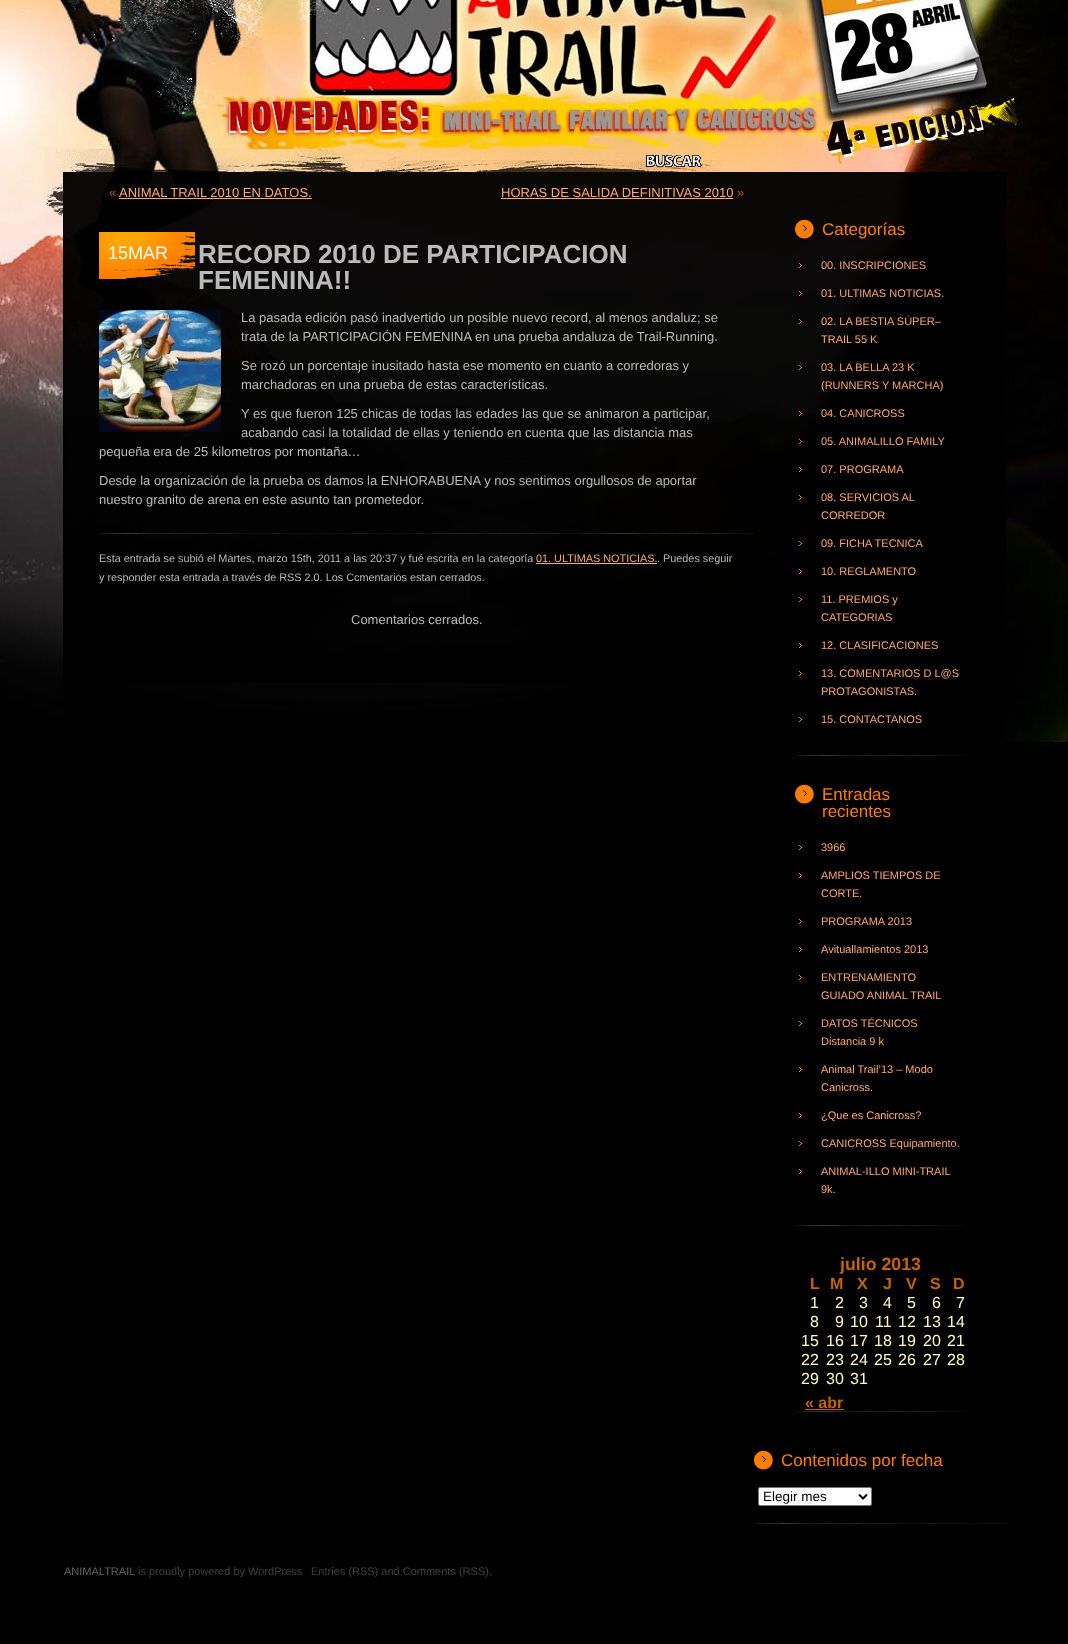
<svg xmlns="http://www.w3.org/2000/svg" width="1068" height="1644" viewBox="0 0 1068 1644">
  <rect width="100%" height="100%" fill="#000"/>
  <image x="0" y="0" width="1068" height="745" href="img/1.png"/>
  <image x="54" y="149" width="734" height="23" href="img/2.png"/>
  <image x="646" y="155" width="56" height="12" href="img/3.png"/>
  <path d="M63 172h943v511H63z" fill="#000000cc"/>
  <path d="M119 198h193v1H119z" fill="#ffa96f"/>
  <path d="M501 198h232v1H501z" fill="#ffa96f"/>
  <image x="99" y="232" width="96" height="47" href="img/4.png"/>
  <image x="99" y="533" width="655" height="1" href="img/5.png"/>
  <image x="99" y="310" width="122" height="122" href="img/6.png"/>
  <path d="M536 563h121v1H536z" fill="#ffa96f"/>
  <image x="795" y="755" width="170" height="1" href="img/7.png"/>
  <image x="795" y="219" width="19" height="20" href="img/8.png"/>
  <image x="799" y="263" width="3" height="5" href="img/9.png"/>
  <image x="799" y="291" width="3" height="5" href="img/10.png"/>
  <image x="799" y="319" width="3" height="5" href="img/10.png"/>
  <image x="799" y="365" width="3" height="5" href="img/11.png"/>
  <image x="799" y="411" width="3" height="5" href="img/12.png"/>
  <image x="799" y="439" width="3" height="5" href="img/13.png"/>
  <image x="799" y="467" width="3" height="5" href="img/14.png"/>
  <image x="799" y="495" width="3" height="5" href="img/14.png"/>
  <image x="799" y="541" width="3" height="5" href="img/15.png"/>
  <image x="799" y="569" width="3" height="5" href="img/16.png"/>
  <image x="799" y="597" width="3" height="5" href="img/14.png"/>
  <image x="799" y="643" width="3" height="5" href="img/14.png"/>
  <image x="799" y="671" width="3" height="5" href="img/14.png"/>
  <image x="799" y="717" width="3" height="5" href="img/14.png"/>
  <image x="795" y="1225" width="170" height="1" href="img/7.png"/>
  <image x="795" y="784" width="19" height="20" href="img/17.png"/>
  <image x="799" y="845" width="3" height="5" href="img/14.png"/>
  <image x="799" y="873" width="3" height="5" href="img/14.png"/>
  <image x="799" y="919" width="3" height="5" href="img/14.png"/>
  <image x="799" y="947" width="3" height="5" href="img/14.png"/>
  <image x="799" y="975" width="3" height="5" href="img/14.png"/>
  <image x="799" y="1021" width="3" height="5" href="img/14.png"/>
  <image x="799" y="1067" width="3" height="5" href="img/14.png"/>
  <image x="799" y="1113" width="3" height="5" href="img/14.png"/>
  <image x="799" y="1141" width="3" height="5" href="img/14.png"/>
  <image x="799" y="1169" width="3" height="5" href="img/14.png"/>
  <image x="795" y="1411" width="170" height="1" href="img/7.png"/>
  <path d="M805 1409h39v1H805z" fill="#c46501"/>
  <image x="754" y="1523" width="252" height="1" href="img/18.png"/>
  <image x="754" y="1450" width="19" height="20" href="img/17.png"/>
  <rect x="758.5" y="1487.5" width="113" height="18" rx="1.5" fill="#fff" stroke="#767676"/>
  <path d="M859 1494.5L863 1498.5L867 1494.5" fill="none" stroke="#000" stroke-width="2"/>
  <text x="109" y="197" font-family="Liberation Sans" font-size="13" fill="#c46501">«</text>
  <g font-family="Liberation Sans" font-size="13" fill="#ffa96f">
    <text x="119" y="197">ANIMAL TRAIL 2010 EN DATOS.</text>
    <text x="501" y="197">HORAS DE SALIDA DEFINITIVAS 2010</text>
  </g>
  <text x="737" y="197" font-family="Liberation Sans" font-size="13" fill="#c46501">»</text>
  <text x="108" y="259" font-family="Liberation Sans" font-size="18" fill="#fff">15MAR</text>
  <g font-family="Liberation Sans" font-size="26" font-weight="bold" fill="#bababa">
    <text x="198" y="263">RECORD 2010 DE PARTICIPACION</text>
    <text x="198" y="289">FEMENINA!!</text>
  </g>
  <g font-family="Liberation Sans" font-size="13" fill="#bababa">
    <text x="241" y="322">La pasada edición pasó inadvertido un posible nuevo record, al menos andaluz; se</text>
    <text x="241" y="341">trata de la PARTICIPACIÓN FEMENINA en una prueba andaluza de Trail-Running.</text>
    <text x="241" y="370">Se rozó un porcentaje inusitado hasta ese momento en cuanto a corredoras y</text>
    <text x="241" y="389">marchadoras en una prueba de estas características.</text>
    <text x="241" y="418">Y es que fueron 125 chicas de todas las edades las que se animaron a participar,</text>
    <text x="241" y="437">acabando casi la totalidad de ellas y teniendo en cuenta que las distancia mas</text>
    <text x="99" y="456">pequeña era de 25 kilometros por montaña…</text>
    <text x="99" y="485">Desde la organización de la prueba os damos la ENHORABUENA y nos sentimos orgullosos de aportar</text>
    <text x="99" y="504">nuestro granito de arena en este asunto tan prometedor.</text>
  </g>
  <text x="99" y="562" font-family="Liberation Sans" font-size="10.85" fill="#bababa">Esta entrada se subió el Martes, marzo 15th, 2011 a las 20:37 y fué escrita en la categoría</text>
  <text x="536" y="562" font-family="Liberation Sans" font-size="10.85" fill="#ffa96f">01. ULTIMAS NOTICIAS.</text>
  <g font-family="Liberation Sans" font-size="10.85" fill="#bababa">
    <text x="657" y="562">. Puedes seguir</text>
    <text x="99" y="581">y responder esta entrada a través de RSS 2.0. Los Ccmentarios estan cerrados.</text>
  </g>
  <text x="351" y="624" font-family="Liberation Sans" font-size="13" fill="#bababa">Comentarios cerrados.</text>
  <text x="822" y="235" font-family="Liberation Sans" font-size="17" fill="#fd7e02">Categorías</text>
  <g font-family="Liberation Sans" font-size="11" fill="#ffa96f">
    <text x="821" y="269">00. INSCRIPCIONES</text>
    <text x="821" y="297">01. ULTIMAS NOTICIAS.</text>
    <text x="821" y="325">02. LA BESTIA SÚPER–</text>
    <text x="821" y="343">TRAIL 55 K</text>
    <text x="821" y="371">03. LA BELLA 23 K</text>
    <text x="821" y="389">(RUNNERS Y MARCHA)</text>
    <text x="821" y="417">04. CANICROSS</text>
    <text x="821" y="445">05. ANIMALILLO FAMILY</text>
    <text x="821" y="473">07. PROGRAMA</text>
    <text x="821" y="501">08. SERVICIOS AL</text>
    <text x="821" y="519">CORREDOR</text>
    <text x="821" y="547">09. FICHA TECNICA</text>
    <text x="821" y="575">10. REGLAMENTO</text>
    <text x="821" y="603">11. PREMIOS y</text>
    <text x="821" y="621">CATEGORIAS</text>
    <text x="821" y="649">12. CLASIFICACIONES</text>
    <text x="821" y="677">13. COMENTARIOS D L@S</text>
    <text x="821" y="695">PROTAGONISTAS.</text>
    <text x="821" y="723">15. CONTACTANOS</text>
  </g>
  <g font-family="Liberation Sans" font-size="17" fill="#fd7e02">
    <text x="822" y="800">Entradas</text>
    <text x="822" y="817">recientes</text>
  </g>
  <g font-family="Liberation Sans" font-size="11" fill="#ffa96f">
    <text x="821" y="851">3966</text>
    <text x="821" y="879">AMPLIOS TIEMPOS DE</text>
    <text x="821" y="897">CORTE.</text>
    <text x="821" y="925">PROGRAMA 2013</text>
    <text x="821" y="953">Avituallamientos 2013</text>
    <text x="821" y="981">ENTRENAMIENTO</text>
    <text x="821" y="999">GUIADO ANIMAL TRAIL</text>
    <text x="821" y="1027">DATOS TÉCNICOS</text>
    <text x="821" y="1045">Distancia 9 k</text>
    <text x="821" y="1073">Animal Trail’13 – Modo</text>
    <text x="821" y="1091">Canicross.</text>
    <text x="821" y="1119">¿Que es Canicross?</text>
    <text x="821" y="1147">CANICROSS Equipamiento.</text>
    <text x="821" y="1175">ANIMAL-ILLO MINI-TRAIL</text>
    <text x="821" y="1193">9k.</text>
  </g>
  <text x="840" y="1270" font-family="Liberation Sans" font-size="17.75" font-weight="bold" fill="#c46501">julio 2013</text>
  <g font-family="Liberation Sans" font-size="16" font-weight="bold" fill="#c46501">
    <text x="810" y="1289">L</text>
    <text x="830" y="1289">M</text>
    <text x="857" y="1289">X</text>
    <text x="883" y="1289">J</text>
    <text x="906" y="1289">V</text>
    <text x="930" y="1289">S</text>
    <text x="953" y="1289">D</text>
  </g>
  <g font-family="Liberation Sans" font-size="16" fill="#fffcbf">
    <text x="810" y="1308">1</text>
    <text x="835" y="1308">2</text>
    <text x="859" y="1308">3</text>
    <text x="883" y="1308">4</text>
    <text x="907" y="1308">5</text>
    <text x="932" y="1308">6</text>
    <text x="956" y="1308">7</text>
    <text x="810" y="1327">8</text>
    <text x="835" y="1327">9</text>
    <text x="850" y="1327">10</text>
    <text x="875" y="1327">11</text>
    <text x="898" y="1327">12</text>
    <text x="923" y="1327">13</text>
    <text x="947" y="1327">14</text>
    <text x="801" y="1346">15</text>
    <text x="826" y="1346">16</text>
    <text x="850" y="1346">17</text>
    <text x="874" y="1346">18</text>
    <text x="898" y="1346">19</text>
    <text x="923" y="1346">20</text>
    <text x="947" y="1346">21</text>
    <text x="801" y="1365">22</text>
    <text x="826" y="1365">23</text>
    <text x="850" y="1365">24</text>
    <text x="874" y="1365">25</text>
    <text x="898" y="1365">26</text>
    <text x="923" y="1365">27</text>
    <text x="947" y="1365">28</text>
    <text x="801" y="1384">29</text>
    <text x="826" y="1384">30</text>
    <text x="850" y="1384">31</text>
  </g>
  <text x="805" y="1408" font-family="Liberation Sans" font-size="16" font-weight="bold" fill="#c46501">« abr</text>
  <text x="781" y="1466" font-family="Liberation Sans" font-size="17" fill="#fd7e02">Contenidos por fecha</text>
  <text x="763" y="1501" font-family="Liberation Sans" font-size="13.5" fill="#000">Elegir mes</text>
  <text x="64" y="1575" font-family="Liberation Sans" font-size="11" fill="#636363">ANIMALTRAIL</text>
  <g font-family="Liberation Sans" font-size="11" fill="#404040">
    <text x="138" y="1575">is proudly powered by WordPress</text>
    <text x="311" y="1575">Entries (RSS) and Comments (RSS).</text>
  </g>
</svg>
